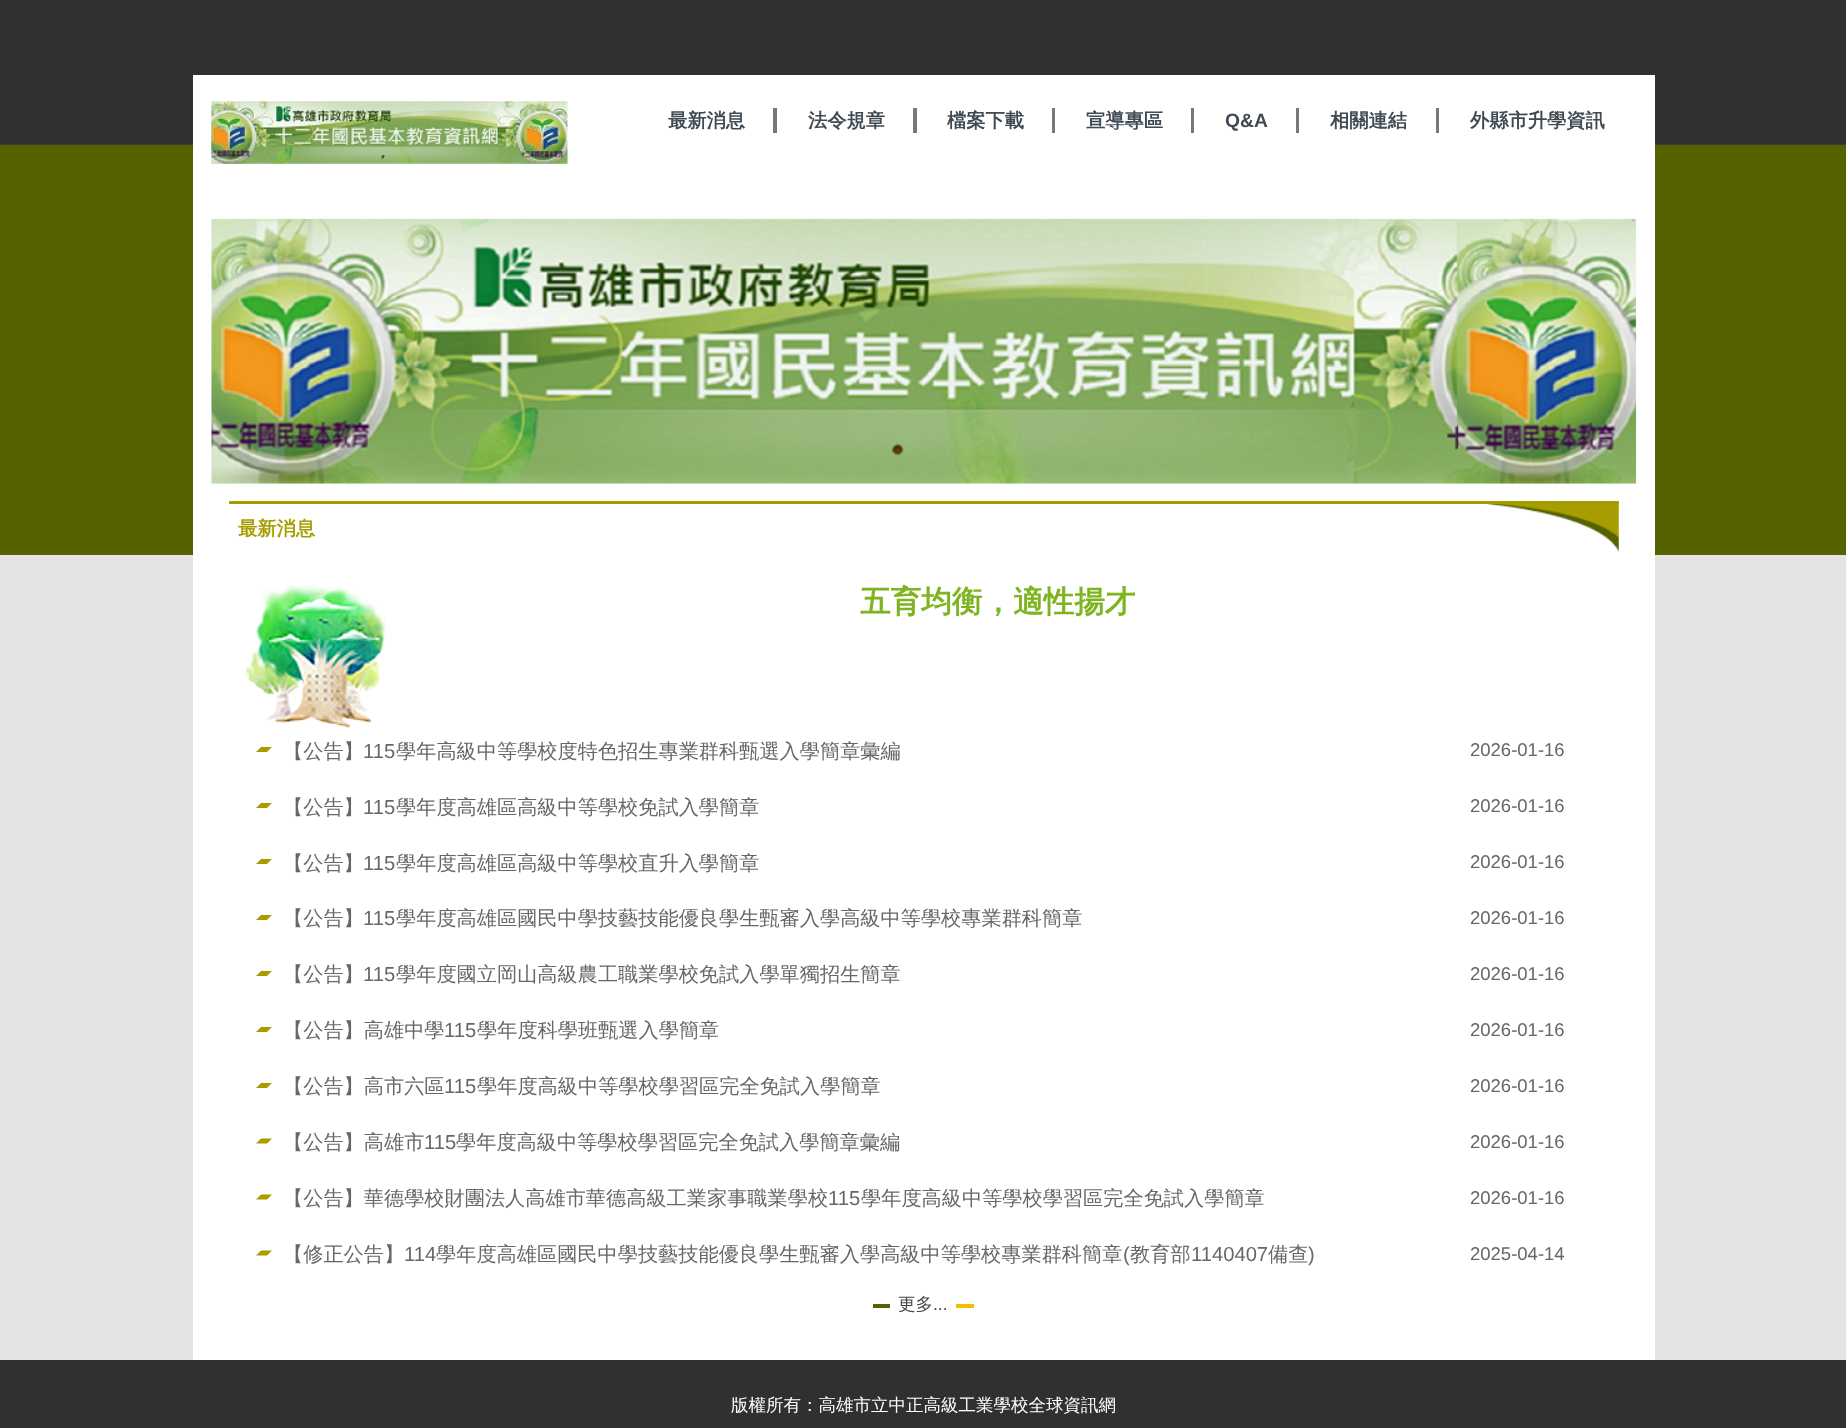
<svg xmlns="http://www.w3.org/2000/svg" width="1846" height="1428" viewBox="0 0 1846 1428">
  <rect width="100%" height="100%" fill="#e4e4e4"/>
  <image x="0" y="0" width="1846" height="555" href="img/1.png"/>
  <path d="M193 75h1462v1285H193z" fill="#fff"/>
  <image x="211" y="101" width="357" height="63" href="img/2.png"/>
  <path d="M773 108h4v25H773z" fill="#787878"/>
  <path d="M913 108h4v25H913z" fill="#787878"/>
  <path d="M1052 108h3v25H1052z" fill="#787878"/>
  <path d="M1191 108h3v25H1191z" fill="#787878"/>
  <path d="M1296 108h3v25H1296z" fill="#787878"/>
  <path d="M1436 108h3v25H1436z" fill="#787878"/>
  <image x="211" y="218" width="1426" height="266" href="img/3.png"/>
  <image x="1486" y="504" width="133" height="48" href="img/4.png"/>
  <path d="M229 501h1390v3H229z" fill="#a69d00"/>
  <image x="246" y="584" width="143" height="144" href="img/5.png"/>
  <path d="M261 747H272L267 752H256Z" fill="#a69d00"/>
  <path d="M261 803H272L267 808H256Z" fill="#a69d00"/>
  <path d="M261 859H272L267 864H256Z" fill="#a69d00"/>
  <path d="M261 915H272L267 920H256Z" fill="#a69d00"/>
  <path d="M261 971H272L267 976H256Z" fill="#a69d00"/>
  <path d="M261 1027H272L267 1032H256Z" fill="#a69d00"/>
  <path d="M261 1083H272L267 1088H256Z" fill="#a69d00"/>
  <path d="M261 1138.5H272L267 1143.5H256Z" fill="#a69d00"/>
  <path d="M261 1194.5H272L267 1199.5H256Z" fill="#a69d00"/>
  <path d="M261 1250.5H272L267 1255.5H256Z" fill="#a69d00"/>
  <path d="M873 1304h17v4H873z" fill="#566200"/>
  <path d="M956 1304h18v4H956z" fill="#f2c001"/>
  <path d="M0 1360h1846v68H0z" fill="#303030"/>
  <g font-family="WenQuanYi Zen Hei" font-size="19.25" font-weight="bold" fill="#3f4a53">
    <text x="668" y="127">最新消息</text>
    <text x="808" y="127">法令規章</text>
    <text x="947" y="127">檔案下載</text>
    <text x="1086" y="127">宣導專區</text>
  </g>
  <text x="1225" y="127" font-family="Liberation Sans" font-size="19.25" font-weight="bold" fill="#3f4a53">Q&amp;A</text>
  <g font-family="WenQuanYi Zen Hei" font-size="19.25" font-weight="bold" fill="#3f4a53">
    <text x="1330" y="127">相關連結</text>
    <text x="1470" y="127">外縣市升學資訊</text>
  </g>
  <text x="238" y="535" font-family="WenQuanYi Zen Hei" font-size="19.25" font-weight="bold" fill="#a69d00">最新消息</text>
  <text x="860" y="612" font-family="WenQuanYi Zen Hei" font-size="30.6" font-weight="bold" fill="#7db41f">五育均衡，適性揚才</text>
  <text x="283" y="758" font-family="WenQuanYi Zen Hei" font-size="20.2" font-weight="500" fill="#676767">【公告】</text>
  <text x="363" y="758" font-family="Liberation Sans" font-size="20.2" fill="#676767">115</text>
  <text x="396" y="758" font-family="WenQuanYi Zen Hei" font-size="20.2" font-weight="500" fill="#676767">學年高級中等學校度特色招生專業群科甄選入學簡章彙編</text>
  <text x="1470" y="756" font-family="Liberation Sans" font-size="18.5" fill="#676767">2026-01-16</text>
  <text x="283" y="814" font-family="WenQuanYi Zen Hei" font-size="20.2" font-weight="500" fill="#676767">【公告】</text>
  <text x="363" y="814" font-family="Liberation Sans" font-size="20.2" fill="#676767">115</text>
  <text x="396" y="814" font-family="WenQuanYi Zen Hei" font-size="20.2" font-weight="500" fill="#676767">學年度高雄區高級中等學校免試入學簡章</text>
  <text x="1470" y="812" font-family="Liberation Sans" font-size="18.5" fill="#676767">2026-01-16</text>
  <text x="283" y="870" font-family="WenQuanYi Zen Hei" font-size="20.2" font-weight="500" fill="#676767">【公告】</text>
  <text x="363" y="870" font-family="Liberation Sans" font-size="20.2" fill="#676767">115</text>
  <text x="396" y="870" font-family="WenQuanYi Zen Hei" font-size="20.2" font-weight="500" fill="#676767">學年度高雄區高級中等學校直升入學簡章</text>
  <text x="1470" y="868" font-family="Liberation Sans" font-size="18.5" fill="#676767">2026-01-16</text>
  <text x="283" y="925" font-family="WenQuanYi Zen Hei" font-size="20.2" font-weight="500" fill="#676767">【公告】</text>
  <text x="363" y="925" font-family="Liberation Sans" font-size="20.2" fill="#676767">115</text>
  <text x="396" y="925" font-family="WenQuanYi Zen Hei" font-size="20.2" font-weight="500" fill="#676767">學年度高雄區國民中學技藝技能優良學生甄審入學高級中等學校專業群科簡章</text>
  <text x="1470" y="924" font-family="Liberation Sans" font-size="18.5" fill="#676767">2026-01-16</text>
  <text x="283" y="981" font-family="WenQuanYi Zen Hei" font-size="20.2" font-weight="500" fill="#676767">【公告】</text>
  <text x="363" y="981" font-family="Liberation Sans" font-size="20.2" fill="#676767">115</text>
  <text x="396" y="981" font-family="WenQuanYi Zen Hei" font-size="20.2" font-weight="500" fill="#676767">學年度國立岡山高級農工職業學校免試入學單獨招生簡章</text>
  <text x="1470" y="980" font-family="Liberation Sans" font-size="18.5" fill="#676767">2026-01-16</text>
  <text x="283" y="1037" font-family="WenQuanYi Zen Hei" font-size="20.2" font-weight="500" fill="#676767">【公告】高雄中學</text>
  <text x="444" y="1037" font-family="Liberation Sans" font-size="20.2" fill="#676767">115</text>
  <text x="477" y="1037" font-family="WenQuanYi Zen Hei" font-size="20.2" font-weight="500" fill="#676767">學年度科學班甄選入學簡章</text>
  <text x="1470" y="1036" font-family="Liberation Sans" font-size="18.5" fill="#676767">2026-01-16</text>
  <text x="283" y="1093" font-family="WenQuanYi Zen Hei" font-size="20.2" font-weight="500" fill="#676767">【公告】高市六區</text>
  <text x="444" y="1093" font-family="Liberation Sans" font-size="20.2" fill="#676767">115</text>
  <text x="477" y="1093" font-family="WenQuanYi Zen Hei" font-size="20.2" font-weight="500" fill="#676767">學年度高級中等學校學習區完全免試入學簡章</text>
  <text x="1470" y="1092" font-family="Liberation Sans" font-size="18.5" fill="#676767">2026-01-16</text>
  <text x="283" y="1149" font-family="WenQuanYi Zen Hei" font-size="20.2" font-weight="500" fill="#676767">【公告】高雄市</text>
  <text x="424" y="1149" font-family="Liberation Sans" font-size="20.2" fill="#676767">115</text>
  <text x="456" y="1149" font-family="WenQuanYi Zen Hei" font-size="20.2" font-weight="500" fill="#676767">學年度高級中等學校學習區完全免試入學簡章彙編</text>
  <text x="1470" y="1148" font-family="Liberation Sans" font-size="18.5" fill="#676767">2026-01-16</text>
  <text x="283" y="1205" font-family="WenQuanYi Zen Hei" font-size="20.2" font-weight="500" fill="#676767">【公告】華德學校財團法人高雄市華德高級工業家事職業學校</text>
  <text x="828" y="1205" font-family="Liberation Sans" font-size="20.2" fill="#676767">115</text>
  <text x="861" y="1205" font-family="WenQuanYi Zen Hei" font-size="20.2" font-weight="500" fill="#676767">學年度高級中等學校學習區完全免試入學簡章</text>
  <text x="1470" y="1204" font-family="Liberation Sans" font-size="18.5" fill="#676767">2026-01-16</text>
  <text x="283" y="1261" font-family="WenQuanYi Zen Hei" font-size="20.2" font-weight="500" fill="#676767">【修正公告】</text>
  <text x="404" y="1261" font-family="Liberation Sans" font-size="20.2" fill="#676767">114</text>
  <text x="436" y="1261" font-family="WenQuanYi Zen Hei" font-size="20.2" font-weight="500" fill="#676767">學年度高雄區國民中學技藝技能優良學生甄審入學高級中等學校專業群科簡章</text>
  <text x="1123" y="1261" font-family="Liberation Sans" font-size="20.2" fill="#676767">(</text>
  <text x="1130" y="1261" font-family="WenQuanYi Zen Hei" font-size="20.2" font-weight="500" fill="#676767">教育部</text>
  <text x="1191" y="1261" font-family="Liberation Sans" font-size="20.2" fill="#676767">1140407</text>
  <text x="1268" y="1261" font-family="WenQuanYi Zen Hei" font-size="20.2" font-weight="500" fill="#676767">備查</text>
  <text x="1308" y="1261" font-family="Liberation Sans" font-size="20.2" fill="#676767">)</text>
  <text x="1470" y="1260" font-family="Liberation Sans" font-size="18.5" fill="#676767">2025-04-14</text>
  <text x="898" y="1310" font-family="WenQuanYi Zen Hei" font-size="17.5" font-weight="500" fill="#464646">更多</text>
  <text x="933" y="1310" font-family="Liberation Sans" font-size="17.5" fill="#464646">...</text>
  <text x="731" y="1411" font-family="WenQuanYi Zen Hei" font-size="17.5" font-weight="500" fill="#fff">版權所有：高雄市立中正高級工業學校全球資訊網</text>
</svg>
